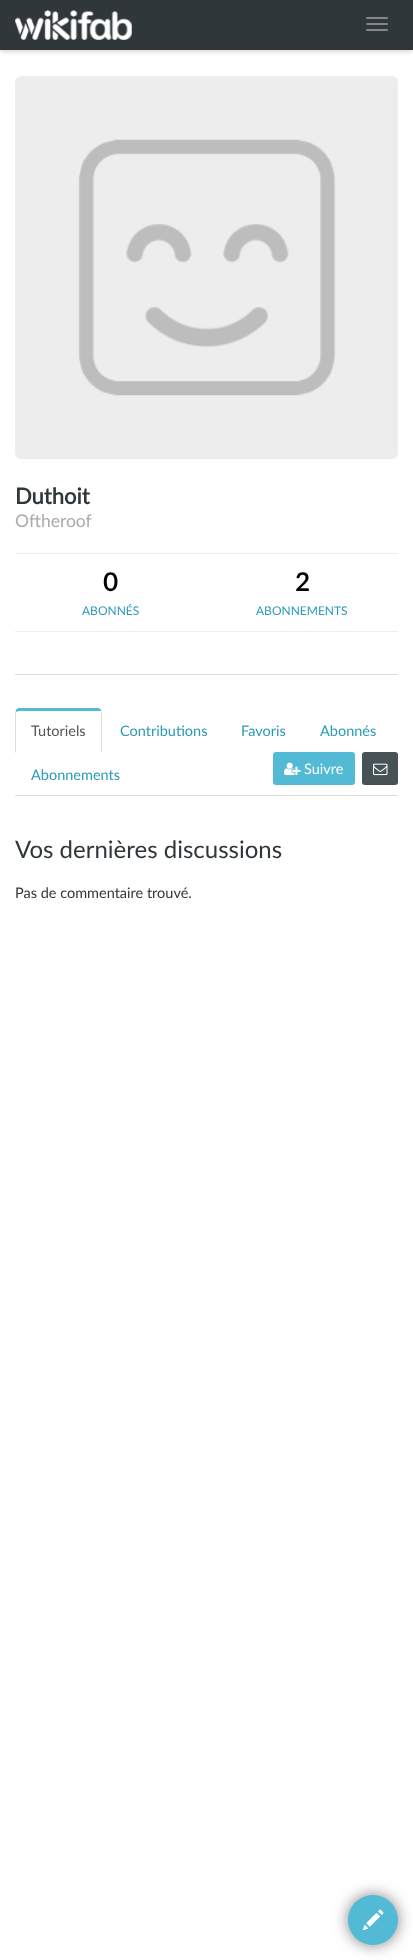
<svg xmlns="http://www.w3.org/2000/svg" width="413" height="1960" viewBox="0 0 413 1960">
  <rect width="100%" height="100%" fill="#fff"/>
  <path d="M0 2h413v50H0z" fill="#00000026" filter="blur(2px)"/>
  <path d="M0 0h413v50H0z" fill="#30373b"/>
  <image x="15" y="10" width="117" height="30" href="img/1.png"/>
  <rect x="366" y="17" width="22" height="2" rx="1" fill="#838789"/>
  <rect x="366" y="23" width="22" height="2" rx="1" fill="#838789"/>
  <rect x="366" y="29" width="22" height="2" rx="1" fill="#838789"/>
  <image x="15" y="76" width="383" height="383" href="img/2.png"/>
  <path d="M15 553h383v1H15z" fill="#eee"/>
  <path d="M15 631h383v1H15z" fill="#eee"/>
  <path d="M15 674h383v1H15z" fill="#ddd"/>
  <path d="M15 795h383v1H15z" fill="#ddd"/>
  <path d="M19 708C18 708 16 709 16 710V712L19 711H98C100 711 100 711 101 711V710C101 709 99 708 98 708Z" fill="#52bad5"/>
  <path d="M102 753V712L101 710V711V752Z" fill="#ddd"/>
  <path d="M15 753L16 752V712V710L15 712Z" fill="#ddd"/>
  <rect x="273" y="752" width="82" height="33" rx="3" fill="#52bad5"/>
  <image x="284" y="762" width="17" height="14" href="img/3.png"/>
  <rect x="362" y="752" width="36" height="33" rx="3" fill="#475257"/>
  <image x="373" y="763" width="15" height="13" href="img/4.png"/>
  <rect x="348" y="1895" width="50" height="50" rx="25" fill="#00000080" filter="blur(7.5px)"/>
  <circle cx="373" cy="1920" r="25" fill="#52bad5"/>
  <image x="362" y="1909" width="22" height="22" href="img/5.png"/>
  <text x="15" y="504" font-family="Lato" font-size="22" font-weight="bold" fill="#30373b">Duthoit</text>
  <text x="15" y="527" font-family="Lato" font-size="17.5" fill="#aaa">Oftheroof</text>
  <text x="103" y="591" font-family="Lato" font-size="25" font-weight="bold" fill="#000">0</text>
  <text x="82" y="615" font-family="Lato" font-size="12" fill="#2c9ab7">ABONNÉS</text>
  <text x="295" y="591" font-family="Lato" font-size="25" font-weight="bold" fill="#000">2</text>
  <text x="256" y="615" font-family="Lato" font-size="12" fill="#2c9ab7">ABONNEMENTS</text>
  <text x="31" y="736" font-family="Lato" font-size="14.5" fill="#555">Tutoriels</text>
  <g font-family="Lato" font-size="14.5" fill="#2c9ab7">
    <text x="120" y="736">Contributions</text>
    <text x="241" y="736">Favoris</text>
    <text x="320" y="736">Abonnés</text>
    <text x="31" y="780">Abonnements</text>
  </g>
  <text x="304" y="774" font-family="Lato" font-size="14.5" fill="#fff">Suivre</text>
  <text x="15" y="858" font-family="Lato" font-size="24" fill="#30373b">Vos dernières discussions</text>
  <text x="15" y="898" font-family="Lato" font-size="14.5" fill="#30373b">Pas de commentaire trouvé.</text>
</svg>
